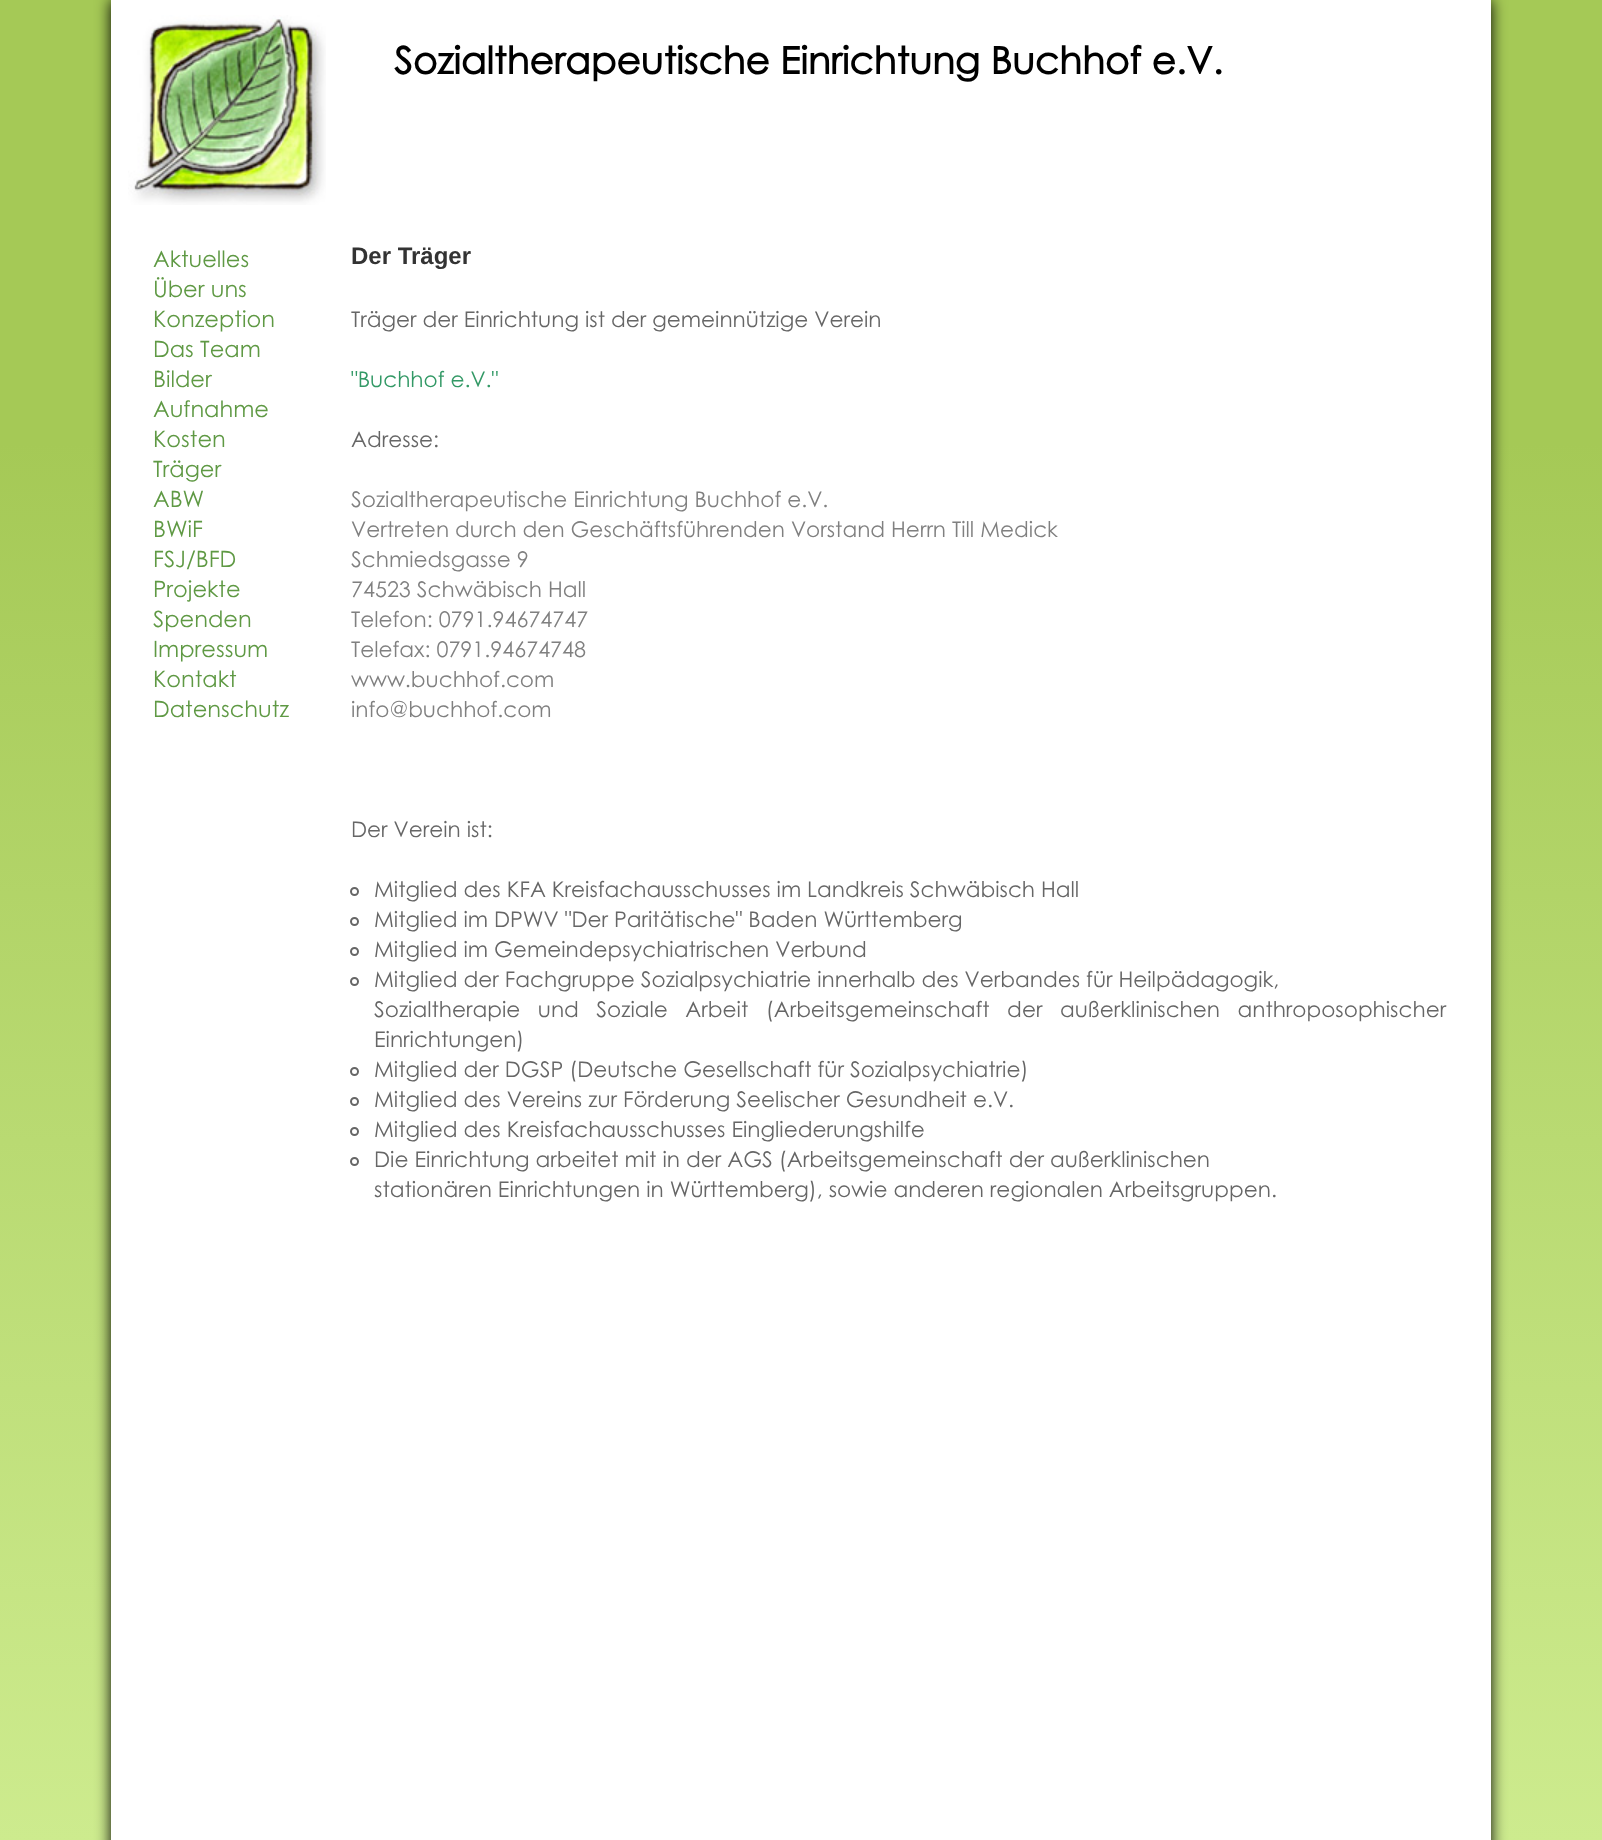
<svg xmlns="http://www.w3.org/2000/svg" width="1602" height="1840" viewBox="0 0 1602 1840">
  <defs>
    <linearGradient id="g1" gradientUnits="userSpaceOnUse" x1="801" y1="0" x2="801" y2="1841"><stop offset="0" stop-color="#a5c956"/><stop offset="0.24" stop-color="#a5c956"/><stop offset="1" stop-color="#cdeb8e"/></linearGradient>
  </defs>
  <rect width="100%" height="100%" fill="#fff"/>
  <path d="M0 0h1602v1840H0z" fill="url(#g1)"/>
  <path d="M111 0h1380v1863H111z" fill="#000" filter="blur(7.5px)"/>
  <path d="M111 0h1380v1840H111z" fill="#fff"/>
  <image x="128" y="15" width="198" height="190" href="img/1.png"/>
  <circle cx="354.5" cy="891.5" r="3.5" fill="none" stroke="#666" stroke-width="2"/>
  <circle cx="354.5" cy="921.5" r="3.5" fill="none" stroke="#666" stroke-width="2"/>
  <circle cx="354.5" cy="951.5" r="3.5" fill="none" stroke="#666" stroke-width="2"/>
  <circle cx="354.5" cy="981.5" r="3.5" fill="none" stroke="#666" stroke-width="2"/>
  <circle cx="354.5" cy="1071.5" r="3.5" fill="none" stroke="#666" stroke-width="2"/>
  <circle cx="354.5" cy="1101.5" r="3.5" fill="none" stroke="#666" stroke-width="2"/>
  <circle cx="354.5" cy="1131.5" r="3.5" fill="none" stroke="#666" stroke-width="2"/>
  <circle cx="354.5" cy="1161.5" r="3.5" fill="none" stroke="#666" stroke-width="2"/>
  <text x="394" y="74" font-family="Century Gothic" font-size="37.5" font-weight="bold" fill="#000">Sozialtherapeutische Einrichtung Buchhof e.V.</text>
  <g font-family="Century Gothic" font-size="22.5" fill="#5f9944">
    <text x="153" y="267">Aktuelles</text>
    <text x="153" y="297">Über uns</text>
    <text x="153" y="327">Konzeption</text>
    <text x="153" y="357">Das Team</text>
    <text x="153" y="387">Bilder</text>
    <text x="153" y="417">Aufnahme</text>
    <text x="153" y="447">Kosten</text>
    <text x="153" y="477">Träger</text>
    <text x="153" y="507">ABW</text>
    <text x="153" y="537">BWiF</text>
    <text x="153" y="567">FSJ/BFD</text>
    <text x="153" y="597">Projekte</text>
    <text x="153" y="627">Spenden</text>
    <text x="153" y="657">Impressum</text>
    <text x="153" y="687">Kontakt</text>
    <text x="153" y="717">Datenschutz</text>
  </g>
  <text x="351" y="264" font-family="Liberation Sans" font-size="24" font-weight="bold" fill="#333">Der Träger</text>
  <text x="351" y="327" font-family="Century Gothic" font-size="21.6" fill="#666">Träger der Einrichtung ist der gemeinnützige Verein</text>
  <text x="351" y="387" font-family="Century Gothic" font-size="21.6" fill="#396">"Buchhof e.V."</text>
  <text x="351" y="447" font-family="Century Gothic" font-size="21.6" fill="#666">Adresse:</text>
  <g font-family="Century Gothic" font-size="21.6" fill="#808080">
    <text x="351" y="507">Sozialtherapeutische Einrichtung Buchhof e.V.</text>
    <text x="351" y="537">Vertreten durch den Geschäftsführenden Vorstand Herrn Till Medick</text>
    <text x="351" y="567">Schmiedsgasse 9</text>
    <text x="351" y="597">74523 Schwäbisch Hall</text>
    <text x="351" y="627">Telefon: 0791.94674747</text>
    <text x="351" y="657">Telefax: 0791.94674748</text>
    <text x="351" y="687">www.buchhof.com</text>
    <text x="351" y="717">info@buchhof.com</text>
  </g>
  <g font-family="Century Gothic" font-size="21.6" fill="#666">
    <text x="351" y="837">Der Verein ist:</text>
    <text x="374" y="897">Mitglied des KFA Kreisfachausschusses im Landkreis Schwäbisch Hall</text>
    <text x="374" y="927">Mitglied im DPWV "Der Paritätische" Baden Württemberg</text>
    <text x="374" y="957">Mitglied im Gemeindepsychiatrischen Verbund</text>
    <text x="374" y="987">Mitglied der Fachgruppe Sozialpsychiatrie innerhalb des Verbandes für Heilpädagogik,</text>
    <text x="374" y="1017" word-spacing="11.5">Sozialtherapie und Soziale Arbeit (Arbeitsgemeinschaft der außerklinischen anthroposophischer</text>
    <text x="374" y="1047">Einrichtungen)</text>
    <text x="374" y="1077">Mitglied der DGSP (Deutsche Gesellschaft für Sozialpsychiatrie)</text>
    <text x="374" y="1107">Mitglied des Vereins zur Förderung Seelischer Gesundheit e.V.</text>
    <text x="374" y="1137">Mitglied des Kreisfachausschusses Eingliederungshilfe</text>
    <text x="374" y="1167">Die Einrichtung arbeitet mit in der AGS (Arbeitsgemeinschaft der außerklinischen</text>
    <text x="374" y="1197">stationären Einrichtungen in Württemberg), sowie anderen regionalen Arbeitsgruppen.</text>
  </g>
</svg>
